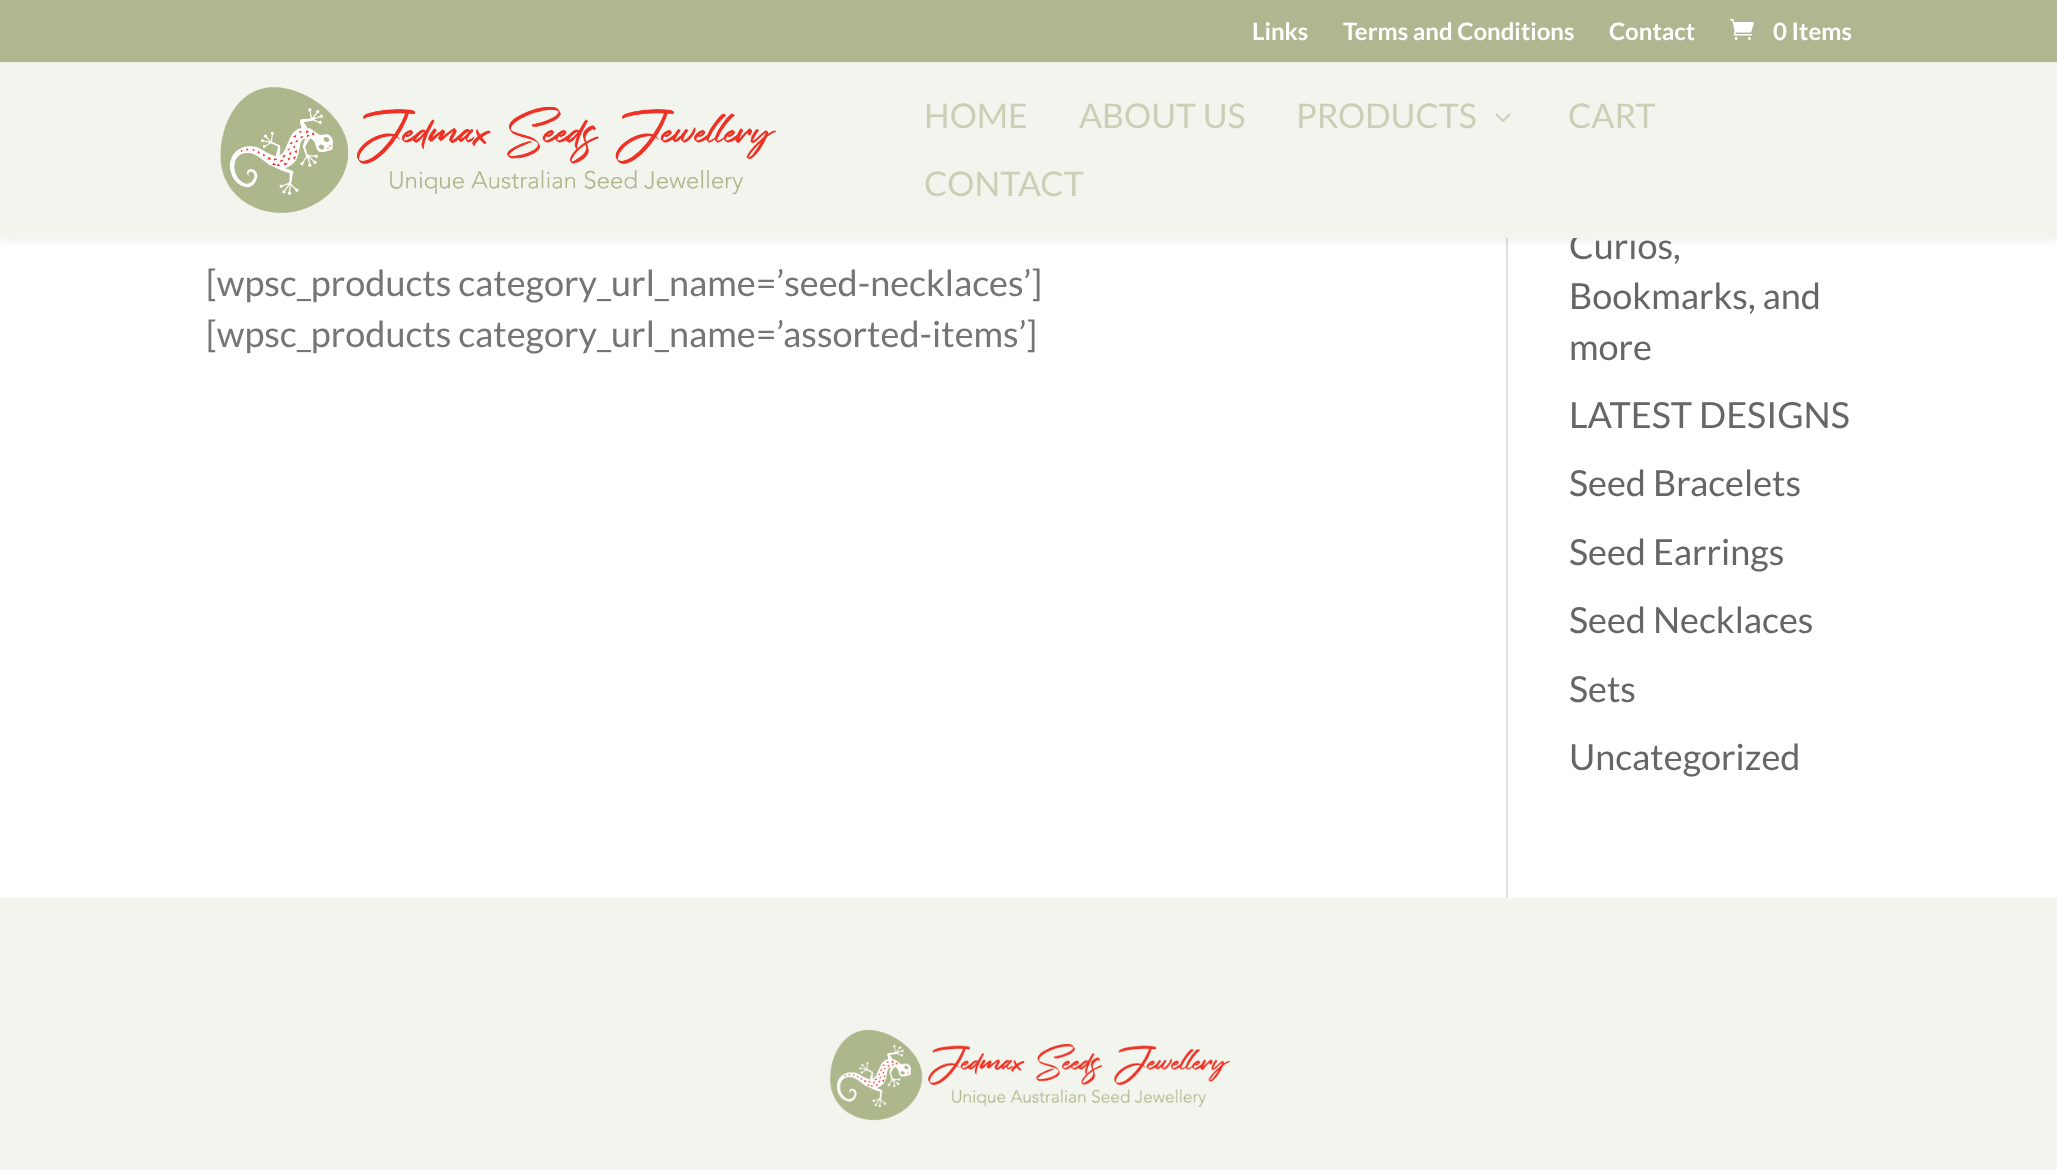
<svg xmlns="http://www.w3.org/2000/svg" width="2057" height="1170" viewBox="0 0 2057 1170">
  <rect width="100%" height="100%" fill="#fff"/>
  <path d="M1506 238h2v660H1506z" fill="#e2e2e2"/>
  <path d="M0 62h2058v176H0z" fill="#0000001a" filter="blur(7px)"/>
  <path d="M0 0h2057v62H0z" fill="#afb790"/>
  <image x="1730" y="19" width="24" height="21" href="img/1.png"/>
  <path d="M0 898h2057v272H0z" fill="#f2f5ee"/>
  <image x="829" y="1029" width="401" height="92" href="img/4.png"/>
  <g font-family="Lato" font-size="24" font-weight="bold" fill="#fff">
    <text x="1252" y="40">Links</text>
    <text x="1343" y="40">Terms and Conditions</text>
    <text x="1609" y="40">Contact</text>
    <text x="1773" y="40">0 Items</text>
  </g>
  <g font-family="Lato" font-size="36" fill="#757575">
    <text x="206" y="296">[wpsc_products category_url_name=’seed-necklaces’]</text>
    <text x="206" y="347">[wpsc_products category_url_name=’assorted-items’]</text>
  </g>
  <text x="1569" y="259" font-family="Lato" font-size="36" fill="#666">Curios,</text>
  <path d="M0 62h2057v176H0z" fill="#f2f5ee"/>
  <g font-family="Lato" font-size="34" fill="#cad0b6">
    <text x="924" y="196">CONTACT</text>
    <text x="1568" y="128">CART</text>
  </g>
  <image x="1495" y="113" width="16" height="9" href="img/3.png"/>
  <g font-family="Lato" font-size="34" fill="#cad0b6">
    <text x="1296" y="128">PRODUCTS</text>
    <text x="1079" y="128">ABOUT US</text>
    <text x="924" y="128">HOME</text>
  </g>
  <image x="220" y="87" width="557" height="126" href="img/2.png"/>
  <g font-family="Lato" font-size="36" fill="#666">
    <text x="1569" y="309">Bookmarks, and</text>
    <text x="1569" y="360">more</text>
    <text x="1569" y="428">LATEST DESIGNS</text>
    <text x="1569" y="496">Seed Bracelets</text>
    <text x="1569" y="565">Seed Earrings</text>
    <text x="1569" y="633">Seed Necklaces</text>
    <text x="1569" y="702">Sets</text>
    <text x="1569" y="770">Uncategorized</text>
  </g>
</svg>
